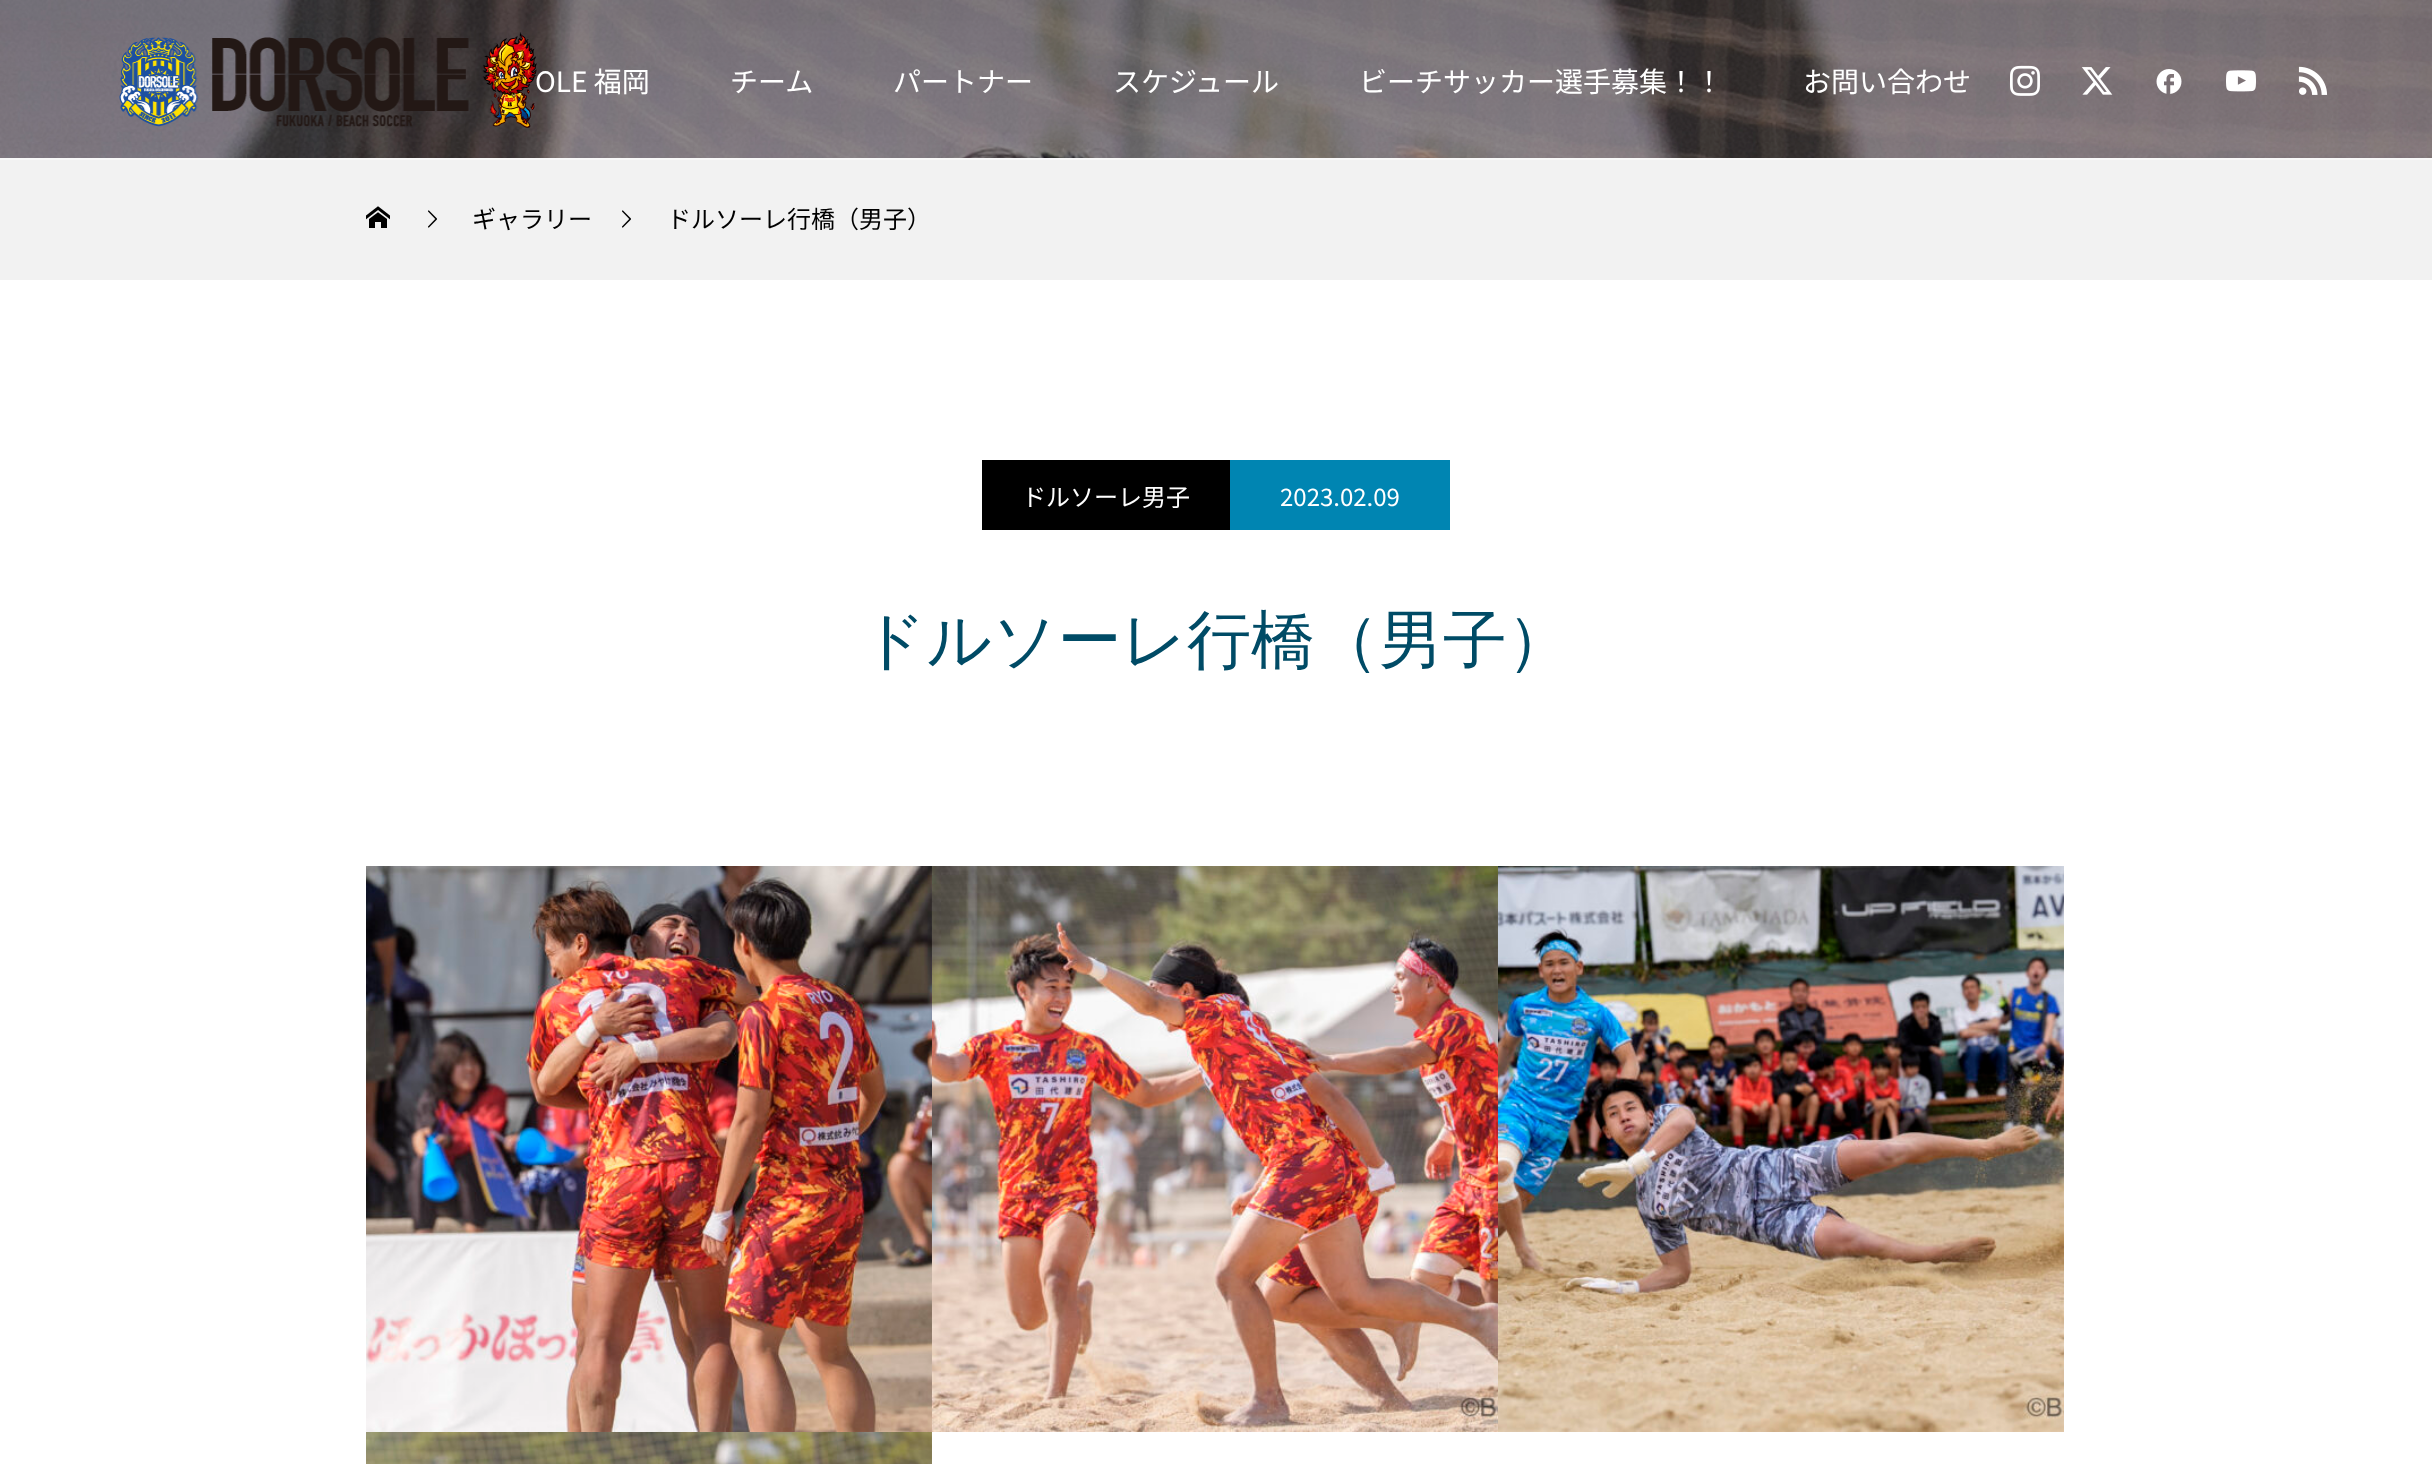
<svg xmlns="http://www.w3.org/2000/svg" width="2432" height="1464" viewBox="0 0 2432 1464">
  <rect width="100%" height="100%" fill="#fff"/>
  <image x="0" y="0" width="2432" height="158" href="img/1.png"/>
  <path d="M0 158h2432v2H0z" fill="#f9f9f9"/>
  <image x="2010" y="65" width="30" height="31" href="img/3.png"/>
  <image x="2081" y="67" width="32" height="28" href="img/4.png"/>
  <image x="2156" y="69" width="26" height="25" href="img/5.png"/>
  <image x="2226" y="70" width="30" height="22" href="img/6.png"/>
  <image x="2298" y="66" width="30" height="29" href="img/7.png"/>
  <path d="M0 160h2432v120H0z" fill="#f2f2f2"/>
  <image x="366" y="206" width="24" height="22" href="img/8.png"/>
  <image x="428" y="210" width="9" height="18" href="img/9.png"/>
  <image x="622" y="210" width="9" height="18" href="img/9.png"/>
  <path d="M982 460h248v70H982z" fill="#000"/>
  <path d="M1230 460h220v70H1230z" fill="#0085b2"/>
  <image x="366" y="866" width="566" height="566" href="img/10.png"/>
  <image x="932" y="866" width="566" height="566" href="img/11.png"/>
  <image x="1498" y="866" width="566" height="566" href="img/12.png"/>
  <image x="366" y="1432" width="566" height="32" href="img/13.png"/>
  <text x="535" y="92" font-family="Noto Sans JP" font-size="28" fill="#fff">OLE 福岡</text>
  <image x="119" y="32" width="418" height="96" href="img/2.png"/>
  <g font-family="Noto Sans JP" font-size="28" fill="#fff">
    <text x="730" y="92">チーム</text>
    <text x="893" y="92">パートナー</text>
    <text x="1113" y="92">スケジュール</text>
    <text x="1359" y="92">ビーチサッカー選手募集！！</text>
    <text x="1803" y="92">お問い合わせ</text>
  </g>
  <g font-family="Noto Sans JP" font-size="24" fill="#000">
    <text x="472" y="228">ギャラリー</text>
    <text x="667" y="228">ドルソーレ行橋（男子）</text>
  </g>
  <g font-family="Noto Sans JP" font-size="24" fill="#fff">
    <text x="1022" y="506">ドルソーレ男子</text>
    <text x="1280" y="506">2023.02.09</text>
  </g>
  <text x="861" y="662" font-family="WenQuanYi Zen Hei" font-size="64" font-weight="500" fill="#004b66">ドルソーレ行橋（男子）</text>
</svg>
